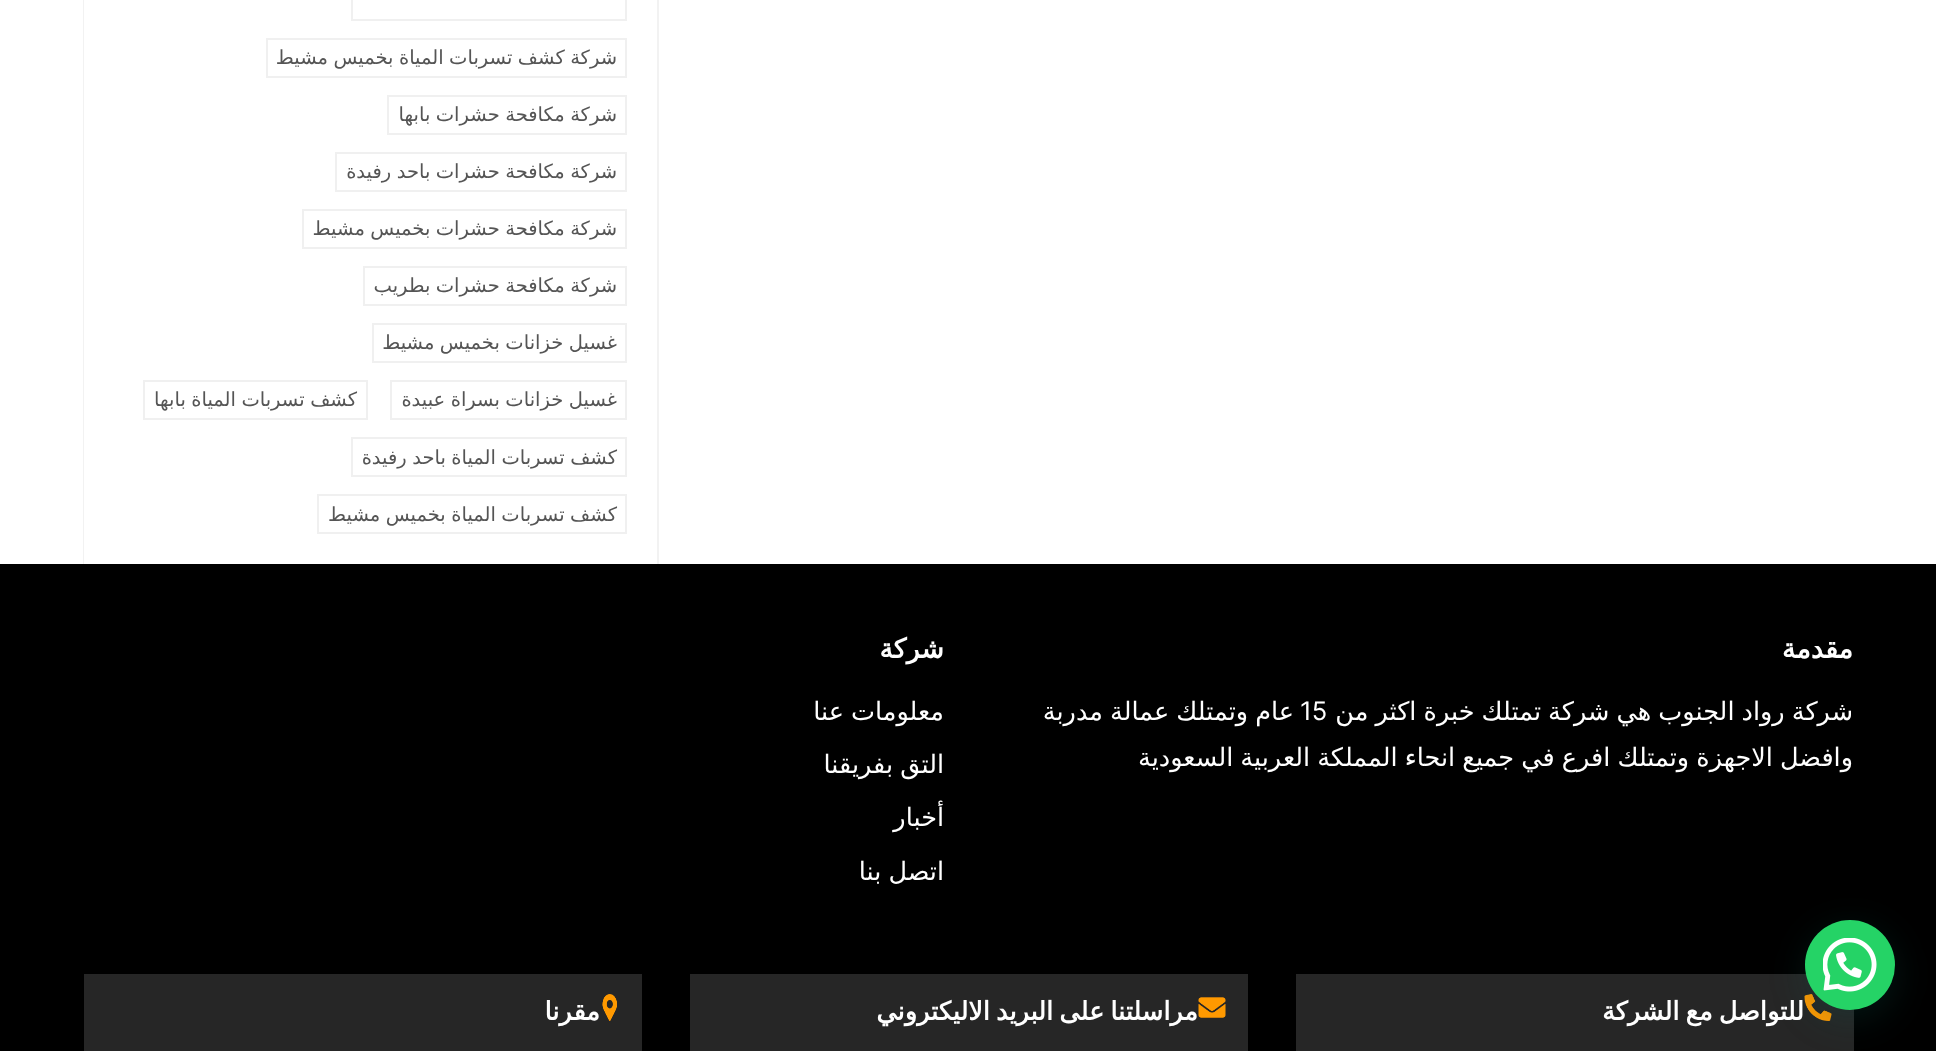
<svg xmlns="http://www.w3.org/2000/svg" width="1936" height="1051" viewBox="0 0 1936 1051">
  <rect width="100%" height="100%" fill="#fff"/>
  <path d="M84 -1h574v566H84z" fill="none" stroke="#f2f2f2" stroke-width="2"/>
  <path d="M84 0h1v564H84z" fill="#fff"/>
  <path d="M352 -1h274v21H352z" fill="none" stroke="#f0f0f0" stroke-width="2"/>
  <path d="M267 39h359v38H267z" fill="none" stroke="#f0f0f0" stroke-width="2"/>
  <path d="M388 96h238v38H388z" fill="none" stroke="#f0f0f0" stroke-width="2"/>
  <path d="M336 153h290v38H336z" fill="none" stroke="#f0f0f0" stroke-width="2"/>
  <path d="M303 210h323v38H303z" fill="none" stroke="#f0f0f0" stroke-width="2"/>
  <path d="M364 267h262v38H364z" fill="none" stroke="#f0f0f0" stroke-width="2"/>
  <path d="M373 324h253v38H373z" fill="none" stroke="#f0f0f0" stroke-width="2"/>
  <path d="M391 381h235v38H391z" fill="none" stroke="#f0f0f0" stroke-width="2"/>
  <path d="M144 381h223v38H144z" fill="none" stroke="#f0f0f0" stroke-width="2"/>
  <path d="M352 438h274v38H352z" fill="none" stroke="#f0f0f0" stroke-width="2"/>
  <path d="M318 495h308v38H318z" fill="none" stroke="#f0f0f0" stroke-width="2"/>
  <path d="M0 564h1936v487H0z" fill="#000"/>
  <path d="M1296 974h558v77H1296z" fill="#262626"/>
  <image x="1804" y="994" width="28" height="27" href="img/1.png"/>
  <path d="M690 974h558v77H690z" fill="#262626"/>
  <image x="1198" y="997" width="28" height="21" href="img/2.png"/>
  <path d="M84 974h558v77H84z" fill="#262626"/>
  <image x="602" y="994" width="15" height="27" href="img/3.png"/>
  <rect x="1806" y="929" width="90" height="90" rx="45" fill="#075e543d" filter="blur(18px)"/>
  <g font-family="DejaVu Sans" font-size="19.5" direction="rtl" fill="#555">
    <text x="617" y="64" word-spacing="-0.75">شركة كشف تسربات المياة بخميس مشيط</text>
    <text x="617" y="121" word-spacing="-0.75">شركة مكافحة حشرات بابها</text>
    <text x="617" y="178" word-spacing="-0.75">شركة مكافحة حشرات باحد رفيدة</text>
    <text x="617" y="235" word-spacing="-0.75">شركة مكافحة حشرات بخميس مشيط</text>
    <text x="617" y="292" word-spacing="-0.75">شركة مكافحة حشرات بطريب</text>
    <text x="617" y="349" word-spacing="-0.75">غسيل خزانات بخميس مشيط</text>
    <text x="617" y="406" word-spacing="-0.75">غسيل خزانات بسراة عبيدة</text>
    <text x="357" y="406" word-spacing="-0.75">كشف تسربات المياة بابها</text>
    <text x="617" y="464" word-spacing="-0.75">كشف تسربات المياة باحد رفيدة</text>
    <text x="617" y="521" word-spacing="-0.75">كشف تسربات المياة بخميس مشيط</text>
  </g>
  <text x="1853" y="658" font-family="DejaVu Sans" font-size="27" font-weight="bold" direction="rtl" fill="#fff">مقدمة</text>
  <text x="1853" y="720" word-spacing="-1" font-family="DejaVu Sans" font-size="25.5" direction="rtl" fill="#fff">شركة رواد الجنوب هي شركة تمتلك خبرة اكثر من</text>
  <text x="1300" y="720" font-family="Inter" font-size="25.5" fill="#fff">15</text>
  <g font-family="DejaVu Sans" font-size="25.5" direction="rtl" fill="#fff">
    <text x="1294" y="720" word-spacing="-1">عام وتمتلك عمالة مدربة</text>
    <text x="1853" y="766" word-spacing="-1">وافضل الاجهزة وتمتلك افرع في جميع انحاء المملكة العربية السعودية</text>
  </g>
  <text x="944" y="658" font-family="DejaVu Sans" font-size="27" font-weight="bold" direction="rtl" fill="#fff">شركة</text>
  <g font-family="DejaVu Sans" font-size="25.5" direction="rtl" fill="#fff">
    <text x="944" y="720" word-spacing="-1">معلومات عنا</text>
    <text x="944" y="773" word-spacing="-1">التق بفريقنا</text>
    <text x="944" y="826">أخبار</text>
    <text x="944" y="880" word-spacing="-1">اتصل بنا</text>
  </g>
  <g font-family="DejaVu Sans" font-size="25.5" font-weight="bold" direction="rtl" fill="#fff">
    <text x="1804" y="1020" word-spacing="-2">للتواصل مع الشركة</text>
    <text x="1198" y="1020" word-spacing="-2">مراسلتنا على البريد الاليكتروني</text>
    <text x="600" y="1020">مقرنا</text>
  </g>
  <circle cx="1850" cy="965" r="45" fill="#25d366"/>
  <image x="1823" y="938" width="54" height="54" href="img/4.png"/>
</svg>
